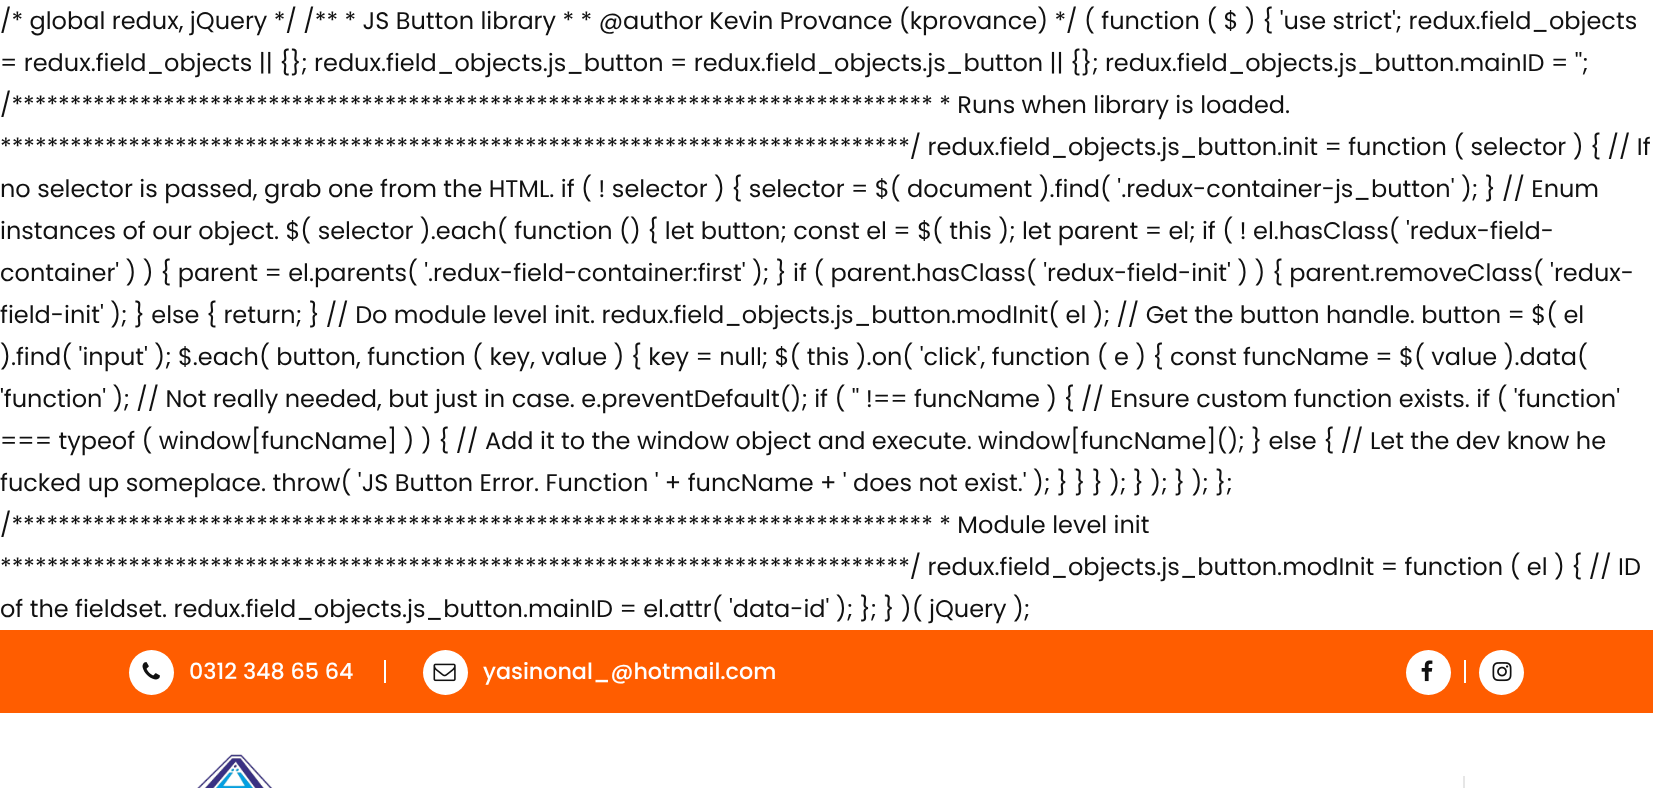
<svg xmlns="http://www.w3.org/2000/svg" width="1653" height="788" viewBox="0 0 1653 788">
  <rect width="100%" height="100%" fill="#fff"/>
  <path d="M0 630h1653v83H0z" fill="#ff5d00"/>
  <circle cx="151.5" cy="672.5" r="22.5" fill="#fff"/>
  <image x="142" y="662" width="18" height="18" href="img/1.png"/>
  <path d="M384 660h2v23H384z" fill="#fff"/>
  <circle cx="445.5" cy="672.5" r="22.5" fill="#fff"/>
  <image x="433" y="663" width="23" height="19" href="img/2.png"/>
  <circle cx="1428.5" cy="672.5" r="22.5" fill="#fff"/>
  <image x="1421" y="660" width="12" height="22" href="img/3.png"/>
  <path d="M1464 660h2v23H1464z" fill="#fff"/>
  <circle cx="1501.5" cy="672.5" r="22.5" fill="#fff"/>
  <image x="1492" y="662" width="20" height="20" href="img/4.png"/>
  <image x="197" y="754" width="76" height="34" href="img/5.png"/>
  <path d="M1463 776h2v12H1463z" fill="#e6e6e6"/>
  <g font-family="Poppins" font-size="24" fill="#111">
    <text x="0" y="29">/* global redux, jQuery */ /** * JS Button library * * @author Kevin Provance (kprovance) */ ( function ( $ ) { 'use strict'; redux.field_objects</text>
    <text x="0" y="71">= redux.field_objects || {}; redux.field_objects.js_button = redux.field_objects.js_button || {}; redux.field_objects.js_button.mainID = '';</text>
    <text x="0" y="113">/******************************************************************************* * Runs when library is loaded.</text>
    <text x="0" y="155">******************************************************************************/ redux.field_objects.js_button.init = function ( selector ) { // If</text>
    <text x="0" y="197">no selector is passed, grab one from the HTML. if ( ! selector ) { selector = $( document ).find( '.redux-container-js_button' ); } // Enum</text>
    <text x="0" y="239">instances of our object. $( selector ).each( function () { let button; const el = $( this ); let parent = el; if ( ! el.hasClass( 'redux-field-</text>
    <text x="0" y="281">container' ) ) { parent = el.parents( '.redux-field-container:first' ); } if ( parent.hasClass( 'redux-field-init' ) ) { parent.removeClass( 'redux-</text>
    <text x="0" y="323">field-init' ); } else { return; } // Do module level init. redux.field_objects.js_button.modInit( el ); // Get the button handle. button = $( el</text>
    <text x="0" y="365">).find( 'input' ); $.each( button, function ( key, value ) { key = null; $( this ).on( 'click', function ( e ) { const funcName = $( value ).data(</text>
    <text x="0" y="407">'function' ); // Not really needed, but just in case. e.preventDefault(); if ( '' !== funcName ) { // Ensure custom function exists. if ( 'function'</text>
    <text x="0" y="449">=== typeof ( window[funcName] ) ) { // Add it to the window object and execute. window[funcName](); } else { // Let the dev know he</text>
    <text x="0" y="491">fucked up someplace. throw( 'JS Button Error. Function ' + funcName + ' does not exist.' ); } } } ); } ); } ); };</text>
    <text x="0" y="533">/******************************************************************************* * Module level init</text>
    <text x="0" y="575">******************************************************************************/ redux.field_objects.js_button.modInit = function ( el ) { // ID</text>
    <text x="0" y="617">of the fieldset. redux.field_objects.js_button.mainID = el.attr( 'data-id' ); }; } )( jQuery );</text>
  </g>
  <g font-family="Poppins" font-size="22.25" font-weight="500" fill="#fff">
    <text x="189" y="679">0312 348 65 64</text>
    <text x="483" y="679">yasinonal_@hotmail.com</text>
  </g>
</svg>
